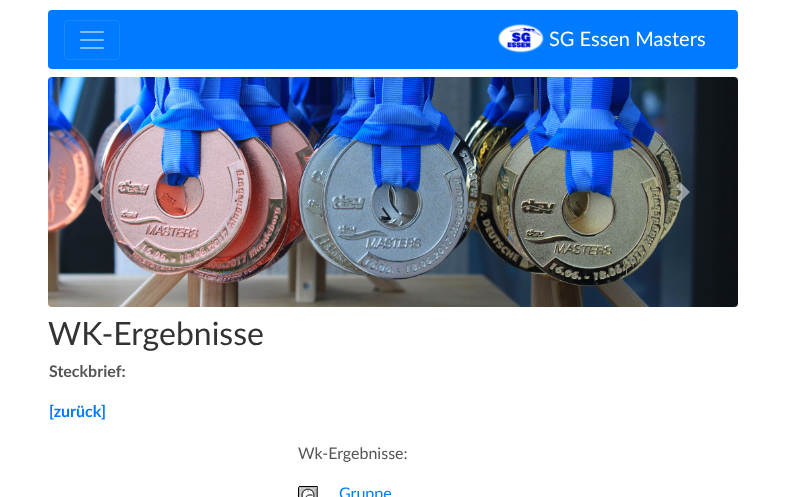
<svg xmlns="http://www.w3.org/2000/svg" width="786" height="497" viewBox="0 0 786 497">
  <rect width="100%" height="100%" fill="#fff"/>
  <rect x="48" y="10" width="690" height="59" rx="4" fill="#007bff"/>
  <rect x="64.5" y="20.5" width="55" height="39" rx="3.5" fill="none" stroke="#1a88ff"/>
  <image x="80" y="31" width="24" height="18" href="img/1.png"/>
  <image x="498" y="23" width="46" height="30" href="img/2.png"/>
  <image x="48" y="77" width="690" height="230" href="img/3.png"/>
  <path d="M100 182L90 192L100 202L104 198L97.5 192L104 186Z" fill="#ffffff80"/>
  <path d="M680 182L676 186L682 192L676 198L680 202L690 192Z" fill="#ffffff80"/>
  <image x="298" y="486" width="20" height="11" href="img/4.png"/>
  <text x="549" y="46" font-family="Lato" font-size="20" fill="#fff">SG Essen Masters</text>
  <text x="48" y="345" font-family="Lato" font-size="32" fill="#333">WK-Ergebnisse</text>
  <text x="49" y="377" font-family="Lato" font-size="16" font-weight="bold" fill="#555">Steckbrief:</text>
  <text x="49" y="417" font-family="Lato" font-size="16" font-weight="bold" fill="#007bff">[zurück]</text>
  <text x="298" y="459" font-family="Lato" font-size="16" fill="#555">Wk-Ergebnisse:</text>
  <text x="339" y="499" font-family="Lato" font-size="16" fill="#007bff">Gruppe</text>
</svg>
